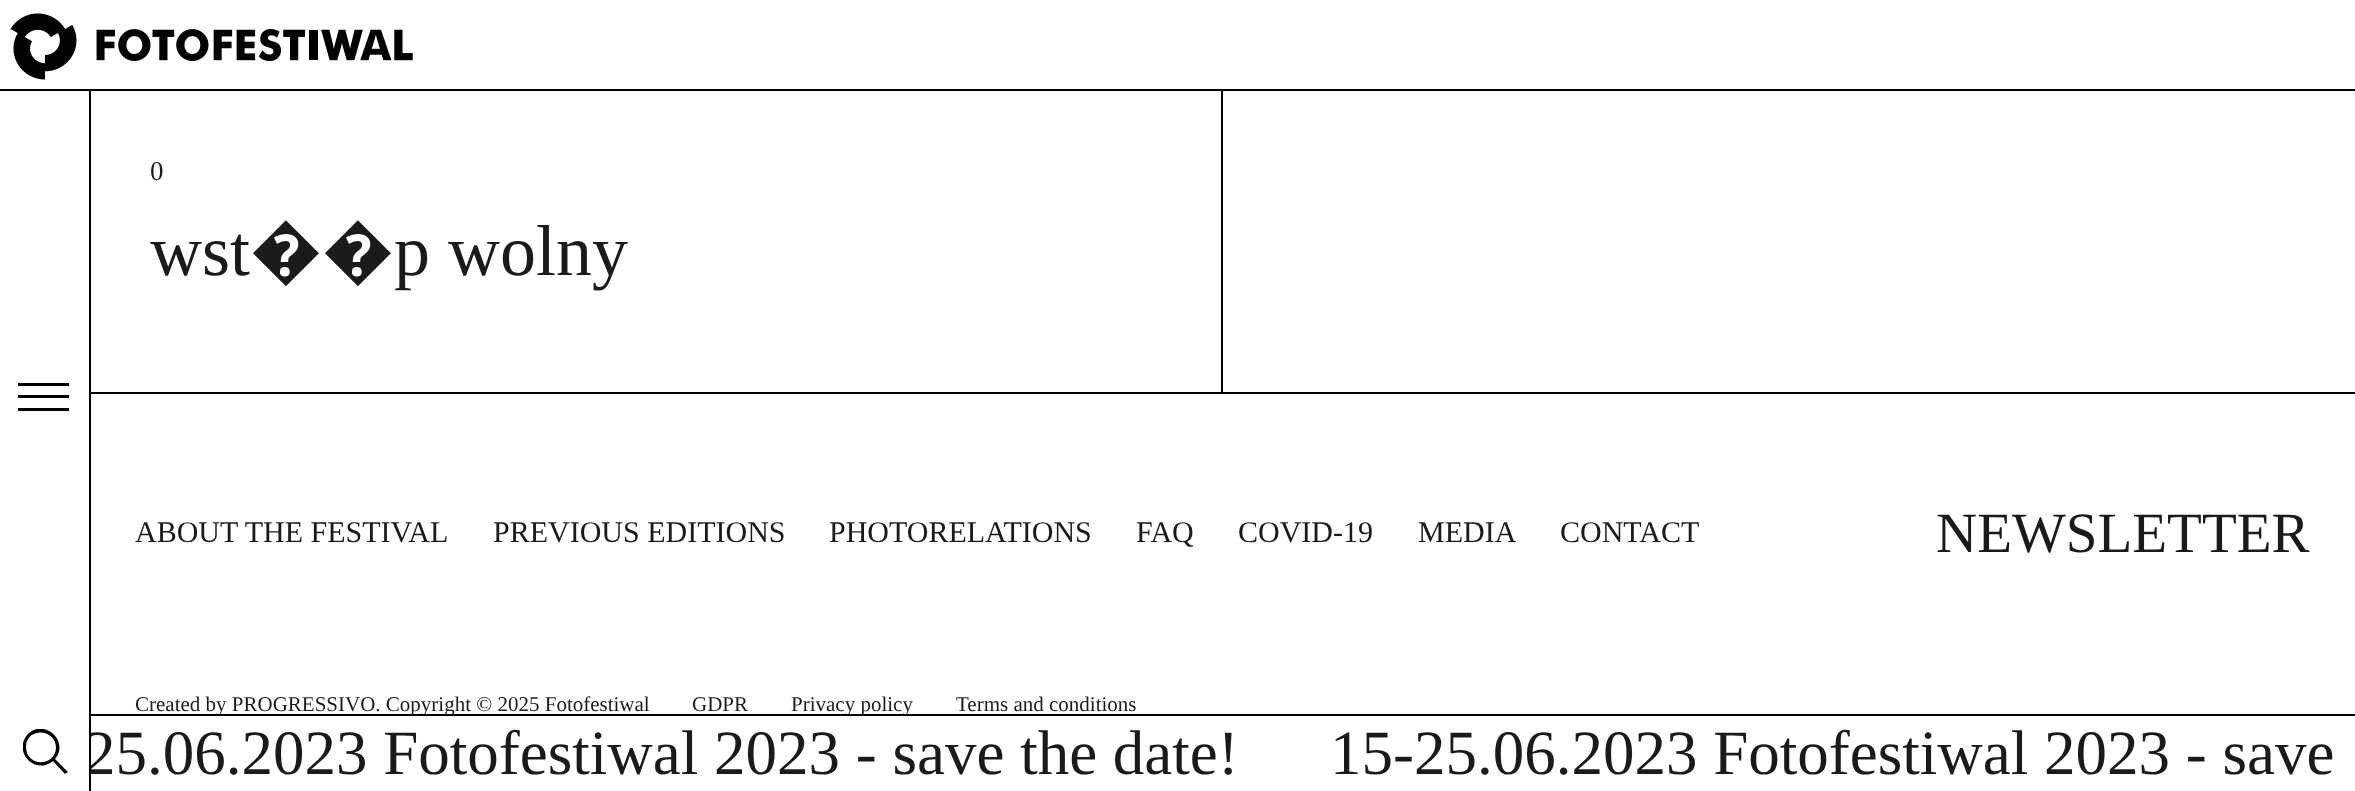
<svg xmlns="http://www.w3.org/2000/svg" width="2355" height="791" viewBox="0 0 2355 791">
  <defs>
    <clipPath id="clip1"><path d="M23 729h45v45H23z"/></clipPath>
  </defs>
  <rect width="100%" height="100%" fill="#fff"/>
  <path d="M90 392h2265v2H90z" fill="#000"/>
  <path d="M1221 90h2v303H1221z" fill="#000"/>
  <path d="M0 89h2355v2H0z" fill="#000"/>
  <image x="10" y="13" width="403" height="67" href="img/1.png"/>
  <path d="M18 383h51v3H18z" fill="#000"/>
  <path d="M18 395h51v3H18z" fill="#000"/>
  <path d="M18 408h51v3H18z" fill="#000"/>
  <g clip-path="url(#clip1)">
    <path d="M68 772L55 759C70 741 44 718 28 734C12 751 35 776 53 761L65 774ZM26 747C26 727 56 728 56 748C55 767 26 767 26 747Z" fill="#000"/>
  </g>
  <text x="150" y="180" font-family="Liberation Serif" font-size="27" fill="#1a1a1a">0</text>
  <text x="150" y="275" font-family="Liberation Serif" font-size="72" fill="#1a1a1a">wst</text>
  <text x="250" y="275" font-family="Noto Sans" font-size="72" fill="#1a1a1a">��</text>
  <text x="394" y="275" font-family="Liberation Serif" font-size="72" fill="#1a1a1a">p wolny</text>
  <g font-family="Liberation Serif" font-size="30" fill="#1a1a1a">
    <text x="135" y="542">ABOUT THE FESTIVAL</text>
    <text x="493" y="542">PREVIOUS EDITIONS</text>
    <text x="829" y="542">PHOTORELATIONS</text>
    <text x="1136" y="542">FAQ</text>
    <text x="1238" y="542">COVID-19</text>
    <text x="1418" y="542">MEDIA</text>
    <text x="1560" y="542">CONTACT</text>
  </g>
  <text x="1936" y="552" font-family="Liberation Serif" font-size="57" fill="#1a1a1a">NEWSLETTER</text>
  <g font-family="Liberation Serif" font-size="21" fill="#1a1a1a">
    <text x="135" y="711">Created by PROGRESSIVO. Copyright © 2025 Fotofestiwal</text>
    <text x="692" y="711">GDPR</text>
    <text x="791" y="711">Privacy policy</text>
    <text x="956" y="711">Terms and conditions</text>
  </g>
  <path d="M91 714h2264v2H91z" fill="#000"/>
  <text x="84" y="774" font-family="Liberation Serif" font-size="63" fill="#1a1a1a">25.06.2023 Fotofestiwal 2023 - save the date!</text>
  <path d="M89 91h2v700H89z" fill="#000"/>
  <path d="M86 733h3v41H86z" fill="#fff"/>
  <text x="1330" y="774" font-family="Liberation Serif" font-size="63" fill="#1a1a1a">15-25.06.2023 Fotofestiwal 2023 - save</text>
</svg>
